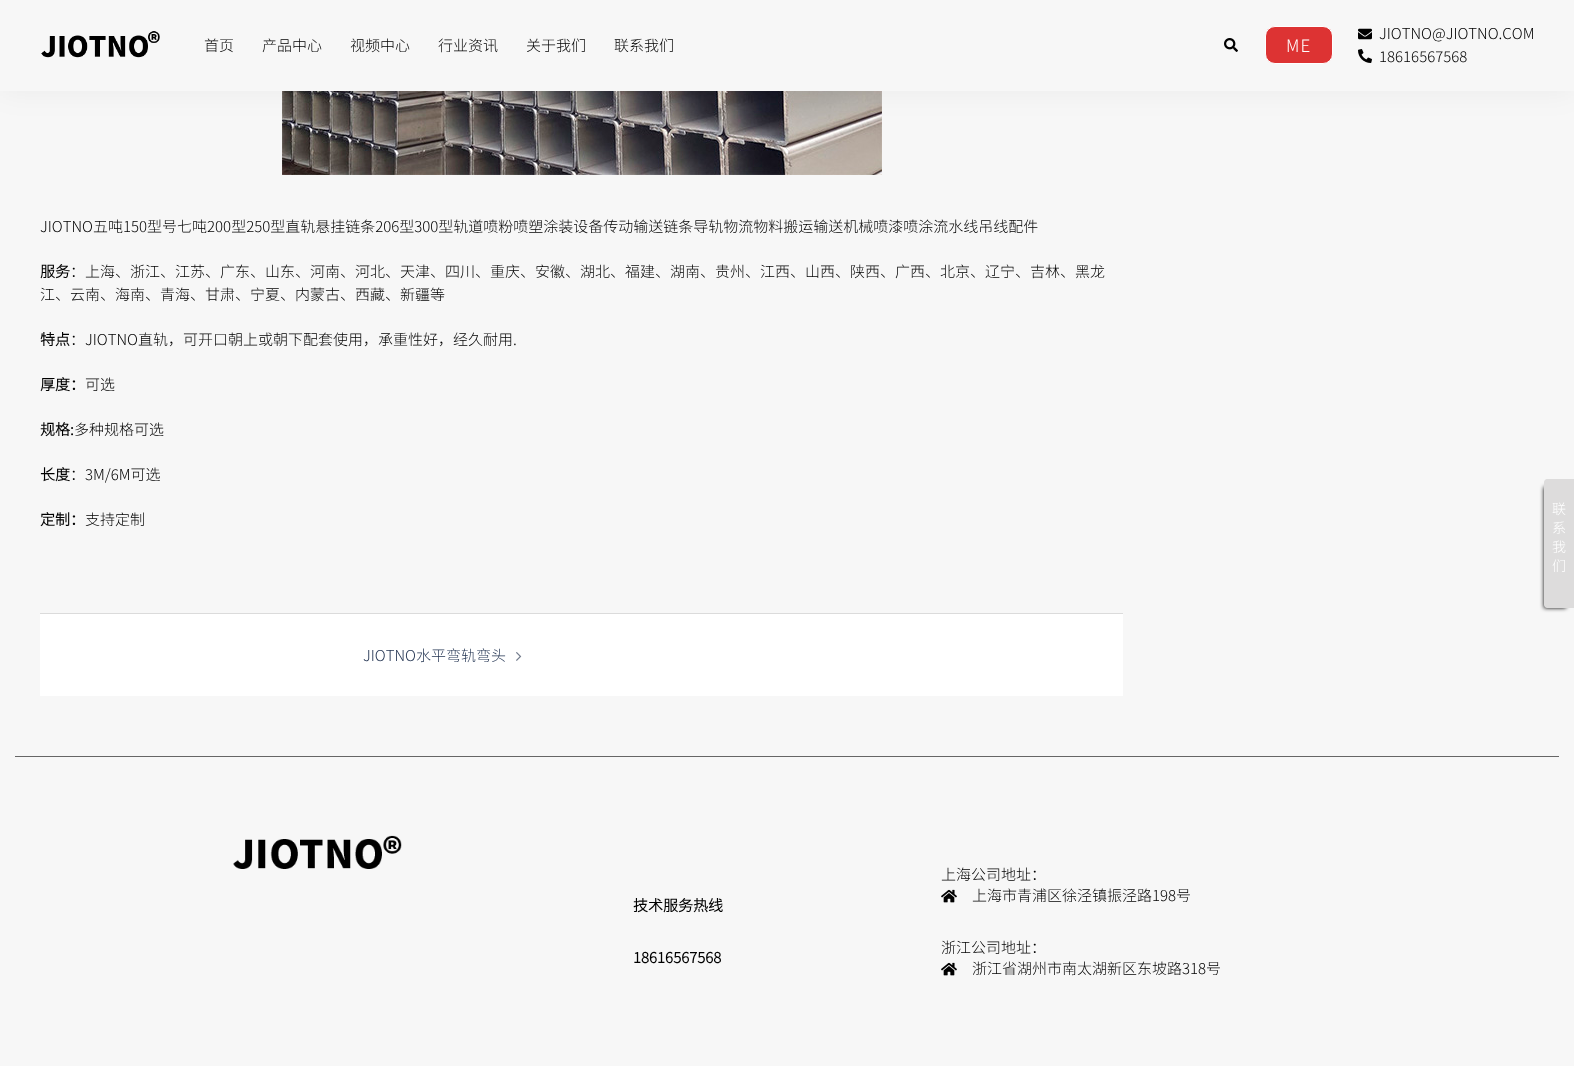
<svg xmlns="http://www.w3.org/2000/svg" width="1574" height="1089" viewBox="0 0 1574 1089">
  <style>*{font-kerning:none!important;font-variant-ligatures:none!important}</style>
  <rect width="100%" height="100%" fill="#f7f7f7"/>
  <image x="282" y="91" width="600" height="84" href="img/5.png"/>
  <path d="M0 0h1574v91H0z" fill="#0000000d" filter="blur(15px)"/>
  <path d="M0 0h1574v91H0z" fill="#f7f7f7"/>
  <image x="41" y="31" width="119" height="27" href="img/1.png"/>
  <image x="1224" y="38" width="14" height="14" href="img/2.png"/>
  <rect x="1265.5" y="26.5" width="67" height="37" rx="9.5" fill="#d33" stroke="#fff"/>
  <image x="1358" y="28" width="14" height="12" href="img/3.png"/>
  <image x="1358" y="49" width="14" height="14" href="img/4.png"/>
  <path d="M40 614h1083v82H40z" fill="#fff"/>
  <path d="M40 613h1083v1H40z" fill="#dbdbdb"/>
  <image x="516" y="652" width="6" height="9" href="img/6.png"/>
  <path d="M15 756h1544v1H15z" fill="#666"/>
  <image x="233" y="835" width="169" height="34" href="img/7.png"/>
  <image x="941" y="889" width="16" height="14" href="img/8.png"/>
  <image x="941" y="962" width="16" height="14" href="img/8.png"/>
  <path d="M0 1066h1574v23H0z" fill="#fff"/>
  <path d="M1544 487h22v121H1544z" fill="#000" filter="blur(2px)"/>
  <path d="M1547 479H1574V608H1547C1545.5 608 1544 606.5 1544 605V482C1544 480.5 1545.5 479 1547 479Z" fill="#dddcdc"/>
  <g font-family="Noto Sans SC" font-size="15" font-weight="300" fill="#000">
    <text x="204" y="51">首页</text>
    <text x="262" y="51">产品中心</text>
    <text x="350" y="51">视频中心</text>
    <text x="438" y="51">行业资讯</text>
    <text x="526" y="51">关于我们</text>
    <text x="614" y="51">联系我们</text>
  </g>
  <text x="1286" y="52" font-family="Noto Sans SC" font-size="17" font-weight="300" letter-spacing="1" fill="#fff">ME</text>
  <g font-family="Noto Sans SC" font-size="15" font-weight="300" fill="#000">
    <text x="1379" y="39">JIOTNO@JIOTNO.COM</text>
    <text x="1379" y="62">18616567568</text>
    <text x="40" y="232">JIOTNO五吨150型号七吨200型250型直轨悬挂链条206型300型轨道喷粉喷塑涂装设备传动输送链条导轨物流物料搬运输送机械喷漆喷涂流水线吊线配件</text>
  </g>
  <text x="40" y="277" font-family="Noto Sans SC" font-size="15" font-weight="bold" fill="#000">服务</text>
  <g font-family="Noto Sans SC" font-size="15" font-weight="300" fill="#000">
    <text x="70" y="277">：上海、浙江、江苏、广东、山东、河南、河北、天津、四川、重庆、安徽、湖北、福建、湖南、贵州、江西、山西、陕西、广西、北京、辽宁、吉林、黑龙</text>
    <text x="40" y="300">江、云南、海南、青海、甘肃、宁夏、内蒙古、西藏、新疆等</text>
  </g>
  <text x="40" y="345" font-family="Noto Sans SC" font-size="15" font-weight="bold" fill="#000">特点</text>
  <text x="70" y="345" font-family="Noto Sans SC" font-size="15" font-weight="300" fill="#000">：JIOTNO直轨，可开口朝上或朝下配套使用，承重性好，经久耐用.</text>
  <text x="40" y="390" font-family="Noto Sans SC" font-size="15" font-weight="bold" fill="#000">厚度：</text>
  <text x="85" y="390" font-family="Noto Sans SC" font-size="15" font-weight="300" fill="#000">可选</text>
  <text x="40" y="435" font-family="Noto Sans SC" font-size="15" font-weight="bold" fill="#000">规格:</text>
  <text x="74" y="435" font-family="Noto Sans SC" font-size="15" font-weight="300" fill="#000">多种规格可选</text>
  <text x="40" y="480" font-family="Noto Sans SC" font-size="15" font-weight="bold" fill="#000">长度</text>
  <text x="70" y="480" font-family="Noto Sans SC" font-size="15" font-weight="300" fill="#000">：3M/6M可选</text>
  <text x="40" y="525" font-family="Noto Sans SC" font-size="15" font-weight="bold" fill="#000">定制：</text>
  <text x="85" y="525" font-family="Noto Sans SC" font-size="15" font-weight="300" fill="#000">支持定制</text>
  <text x="363" y="661" font-family="Noto Sans SC" font-size="15" font-weight="300" fill="#233452">JIOTNO水平弯轨弯头</text>
  <g font-family="Noto Sans SC" font-size="15" font-weight="bold" fill="#000">
    <text x="633" y="911">技术服务热线</text>
    <text x="633" y="963">18616567568</text>
  </g>
  <g font-family="Noto Sans SC" font-size="15" font-weight="300" fill="#000">
    <text x="941" y="880">上海公司地址：</text>
    <text x="972" y="901">上海市青浦区徐泾镇振泾路198号</text>
    <text x="941" y="953">浙江公司地址：</text>
    <text x="972" y="974">浙江省湖州市南太湖新区东坡路318号</text>
  </g>
  <g font-family="Noto Sans SC" font-size="14" font-weight="300" fill="#fff">
    <text x="1552" y="514">联</text>
    <text x="1552" y="533">系</text>
    <text x="1552" y="552">我</text>
    <text x="1552" y="571">们</text>
  </g>
</svg>
